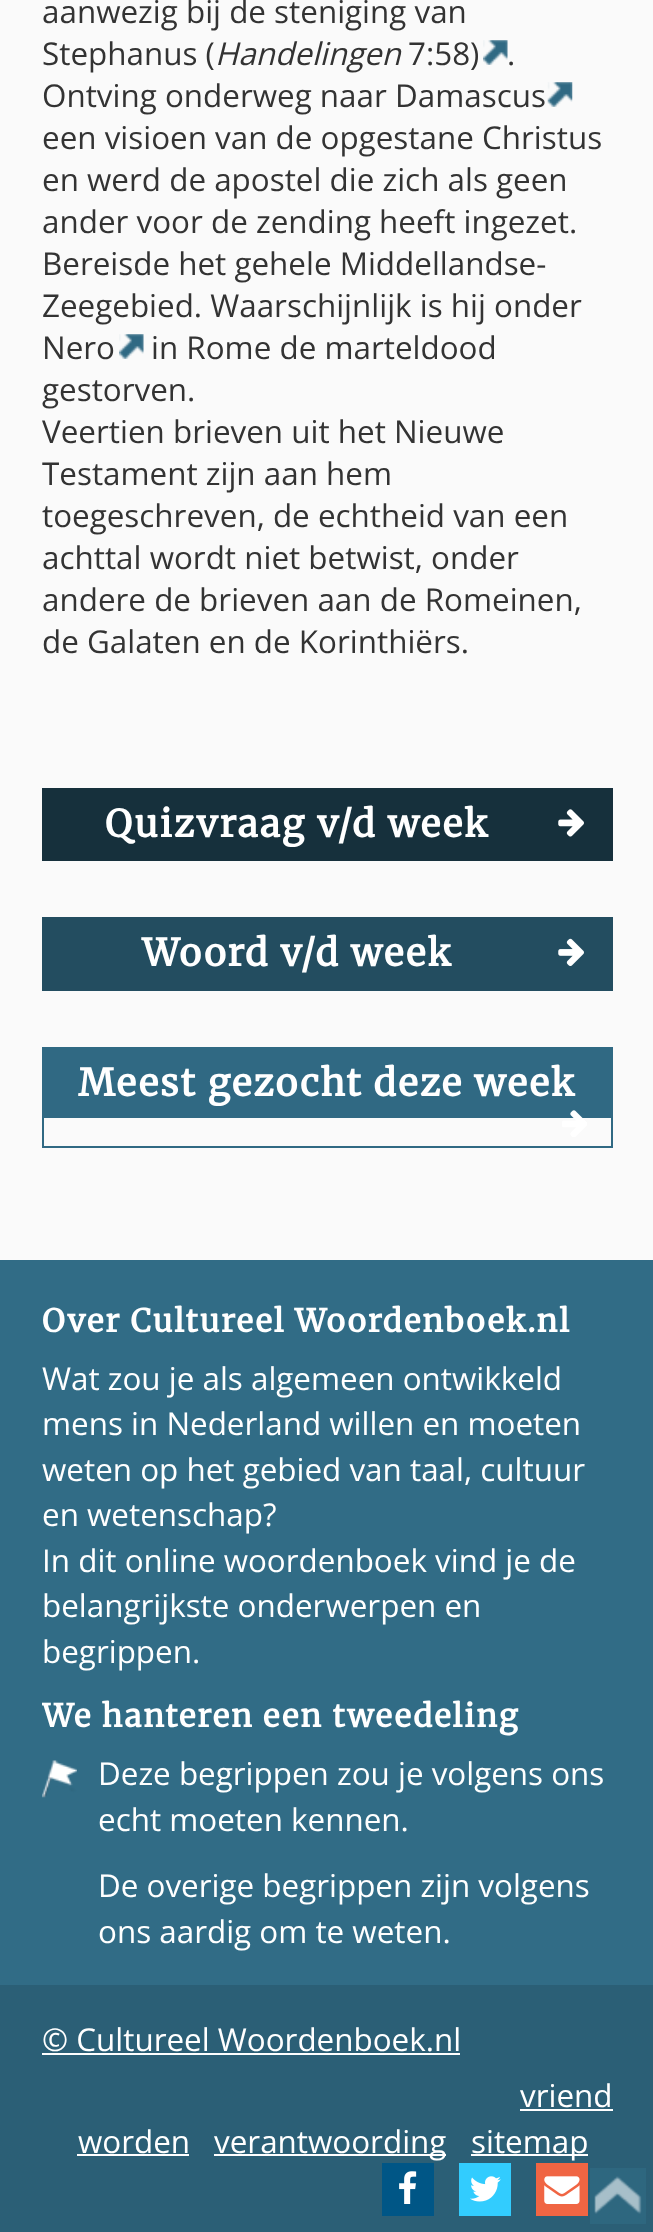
<svg xmlns="http://www.w3.org/2000/svg" width="653" height="2232" viewBox="0 0 653 2232">
  <defs>
    <clipPath id="clip1"><path d="M42 1684h571v280H42z"/></clipPath>
  </defs>
  <rect width="100%" height="100%" fill="#fafafa"/>
  <image x="483" y="40" width="25" height="25" href="img/1.png"/>
  <image x="547" y="82" width="26" height="25" href="img/2.png"/>
  <image x="119" y="334" width="25" height="25" href="img/1.png"/>
  <path d="M43 789h569v71H43z" fill="none" stroke="#16303c" stroke-width="2"/>
  <path d="M44 790h567v69H44z" fill="#16303c"/>
  <image x="558" y="809" width="26" height="28" href="img/3.png"/>
  <path d="M43 918h569v72H43z" fill="none" stroke="#234d60" stroke-width="2"/>
  <path d="M44 919h567v70H44z" fill="#234d60"/>
  <image x="558" y="938" width="26" height="28" href="img/4.png"/>
  <path d="M43 1048h569v99H43z" fill="none" stroke="#306983" stroke-width="2"/>
  <path d="M44 1049h567v69H44z" fill="#306983"/>
  <image x="562" y="1110" width="25" height="27" href="img/5.png"/>
  <path d="M0 1260h653v725H0z" fill="#316c86"/>
  <image x="42" y="1760" width="35" height="38" href="img/6.png"/>
  <path d="M0 1985h653v247H0z" fill="#2b5f76"/>
  <path d="M42 2053h418v2H42z" fill="#fff"/>
  <path d="M520 2109h93v2H520z" fill="#fff"/>
  <path d="M77 2154h112v2H77z" fill="#fff"/>
  <path d="M214 2154h232v2H214z" fill="#fff"/>
  <path d="M471 2154h117v2H471z" fill="#fff"/>
  <path d="M382 2163h52v53H382z" fill="#005686"/>
  <image x="399" y="2171" width="18" height="33" href="img/7.png"/>
  <path d="M459 2163h52v53H459z" fill="#32ccfe"/>
  <image x="470" y="2176" width="31" height="26" href="img/8.png"/>
  <path d="M536 2163h52v53H536z" fill="#f06543"/>
  <image x="544" y="2176" width="36" height="28" href="img/9.png"/>
  <path d="M590 2168h56v56H590z" fill="#2e677f"/>
  <image x="594" y="2176" width="48" height="38" href="img/10.png"/>
  <g font-family="Open Sans" font-size="31.4" fill="#333">
    <text x="42" y="23">aanwezig bij de steniging van</text>
    <text x="42" y="65">Stephanus (</text>
  </g>
  <text x="215" y="65" font-family="Open Sans" font-size="31.4" font-style="italic" fill="#333">Handelingen</text>
  <g font-family="Open Sans" font-size="31.4" fill="#333">
    <text x="408" y="65">7:58)</text>
    <text x="507" y="65">.</text>
    <text x="42" y="107">Ontving onderweg naar Damascus</text>
    <text x="42" y="149">een visioen van de opgestane Christus</text>
    <text x="42" y="191">en werd de apostel die zich als geen</text>
    <text x="42" y="233">ander voor de zending heeft ingezet.</text>
    <text x="42" y="275">Bereisde het gehele Middellandse-</text>
    <text x="42" y="317">Zeegebied. Waarschijnlijk is hij onder</text>
    <text x="42" y="359">Nero</text>
    <text x="151" y="359">in Rome de marteldood</text>
    <text x="42" y="401">gestorven.</text>
    <text x="42" y="443">Veertien brieven uit het Nieuwe</text>
    <text x="42" y="485">Testament zijn aan hem</text>
    <text x="42" y="527">toegeschreven, de echtheid van een</text>
    <text x="42" y="569">achttal wordt niet betwist, onder</text>
    <text x="42" y="611">andere de brieven aan de Romeinen,</text>
    <text x="42" y="653">de Galaten en de Korinthiërs.</text>
  </g>
  <g font-family="Merriweather" font-size="37.25" font-weight="bold" letter-spacing="1.95" fill="#fff">
    <text x="105" y="837">Quizvraag v/d week</text>
    <text x="142" y="966">Woord v/d week</text>
    <text x="78" y="1096">Meest gezocht deze week</text>
  </g>
  <text x="42" y="1332" font-family="Merriweather" font-size="31.4" font-weight="bold" letter-spacing="1.95" fill="#fff">Over Cultureel Woordenboek.nl</text>
  <g font-family="Open Sans" font-size="31.4" fill="#fff">
    <text x="42" y="1390">Wat zou je als algemeen ontwikkeld</text>
    <text x="42" y="1435">mens in Nederland willen en moeten</text>
    <text x="42" y="1481">weten op het gebied van taal, cultuur</text>
    <text x="42" y="1526">en wetenschap?</text>
    <text x="42" y="1572">In dit online woordenboek vind je de</text>
    <text x="42" y="1617">belangrijkste onderwerpen en</text>
    <text x="42" y="1663">begrippen.</text>
  </g>
  <g clip-path="url(#clip1)">
    <text x="42" y="1727" font-family="Merriweather" font-size="31.4" font-weight="bold" letter-spacing="1.95" fill="#fff">We hanteren een tweedeling</text>
  </g>
  <g font-family="Open Sans" font-size="31.4" fill="#fff">
    <text x="98" y="1785">Deze begrippen zou je volgens ons</text>
    <text x="98" y="1831">echt moeten kennen.</text>
    <text x="98" y="1897">De overige begrippen zijn volgens</text>
    <text x="98" y="1943">ons aardig om te weten.</text>
    <text x="42" y="2051">© Cultureel Woordenboek.nl</text>
    <text x="520" y="2107">vriend</text>
    <text x="78" y="2153">worden</text>
    <text x="214" y="2153">verantwoording</text>
    <text x="471" y="2153">sitemap</text>
  </g>
</svg>
